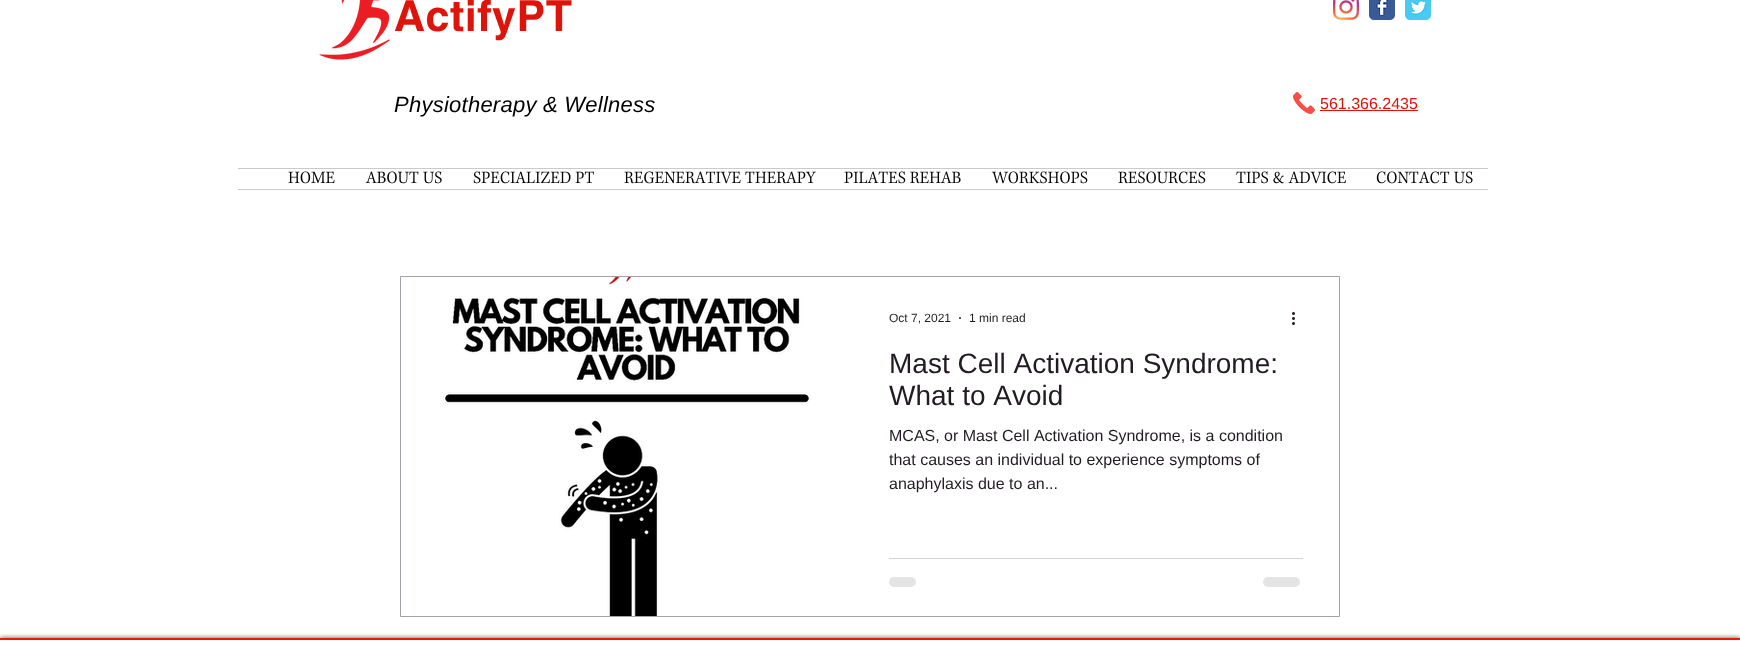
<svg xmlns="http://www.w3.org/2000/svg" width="1740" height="647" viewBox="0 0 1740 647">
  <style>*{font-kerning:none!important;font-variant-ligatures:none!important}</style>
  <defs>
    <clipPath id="clip1"><path d="M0 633h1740v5H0z"/></clipPath>
  </defs>
  <rect width="100%" height="100%" fill="#fff"/>
  <image x="319" y="0" width="71" height="60" href="img/1.png"/>
  <image x="1333" y="0" width="26" height="20" href="img/2.png"/>
  <image x="1369" y="0" width="26" height="20" href="img/3.png"/>
  <image x="1405" y="0" width="26" height="20" href="img/4.png"/>
  <image x="1293" y="92" width="22" height="22" href="img/5.png"/>
  <path d="M1320 110h98v1H1320z" fill="#de1309"/>
  <path d="M238 168h1250v1H238z" fill="#cacaca"/>
  <path d="M238 189h1250v1H238z" fill="#cacaca"/>
  <image x="288" y="171" width="47" height="13" href="img/6.png"/>
  <image x="365" y="171" width="77" height="13" href="img/7.png"/>
  <image x="473" y="171" width="121" height="13" href="img/8.png"/>
  <image x="624" y="171" width="192" height="13" href="img/9.png"/>
  <image x="844" y="171" width="117" height="13" href="img/10.png"/>
  <image x="991" y="171" width="97" height="13" href="img/11.png"/>
  <image x="1118" y="171" width="88" height="13" href="img/12.png"/>
  <image x="1236" y="171" width="110" height="13" href="img/13.png"/>
  <image x="1376" y="171" width="97" height="13" href="img/14.png"/>
  <path d="M400.5 276.5h939v340H400.5z" fill="none" stroke="#a69ea7"/>
  <image x="403" y="277" width="446" height="339" href="img/15.png"/>
  <circle cx="960" cy="318" r="1" fill="#221b23"/>
  <image x="1292" y="312" width="3" height="13" href="img/16.png"/>
  <path d="M889 558h414v1H889z" fill="#d3d1d3"/>
  <rect x="889" y="577" width="27" height="10" rx="5" fill="#e4e4e5"/>
  <rect x="1263" y="577" width="37" height="10" rx="5" fill="#e4e4e5"/>
  <g clip-path="url(#clip1)">
    <path d="M0 638h1740v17H0z" fill="#000000b3" filter="blur(2.5px)"/>
  </g>
  <path d="M0 638h1740v2H0z" fill="#ed170c"/>
  <text x="394" y="31" font-family="helvetica" font-size="43" font-weight="bold" letter-spacing="0.5" fill="#de1309">ActifyPT</text>
  <text x="394" y="112" font-family="Liberation Sans" font-size="22" font-style="italic" letter-spacing="0.25" fill="#000">Physiotherapy &amp; Wellness</text>
  <text x="1320" y="109" font-family="Liberation Sans" font-size="16" fill="#de1309">561.366.2435</text>
  <g font-family="Liberation Sans" font-size="12" fill="#221b23">
    <text x="889" y="322">Oct 7, 2021</text>
    <text x="969" y="322">1 min read</text>
  </g>
  <g font-family="Liberation Sans" font-size="28" fill="#221b23">
    <text x="889" y="373">Mast Cell Activation Syndrome:</text>
    <text x="889" y="405">What to Avoid</text>
  </g>
  <g font-family="Liberation Sans" font-size="16" fill="#221b23">
    <text x="889" y="441">MCAS, or Mast Cell Activation Syndrome, is a condition</text>
    <text x="889" y="465">that causes an individual to experience symptoms of</text>
    <text x="889" y="489">anaphylaxis due to an...</text>
  </g>
</svg>
